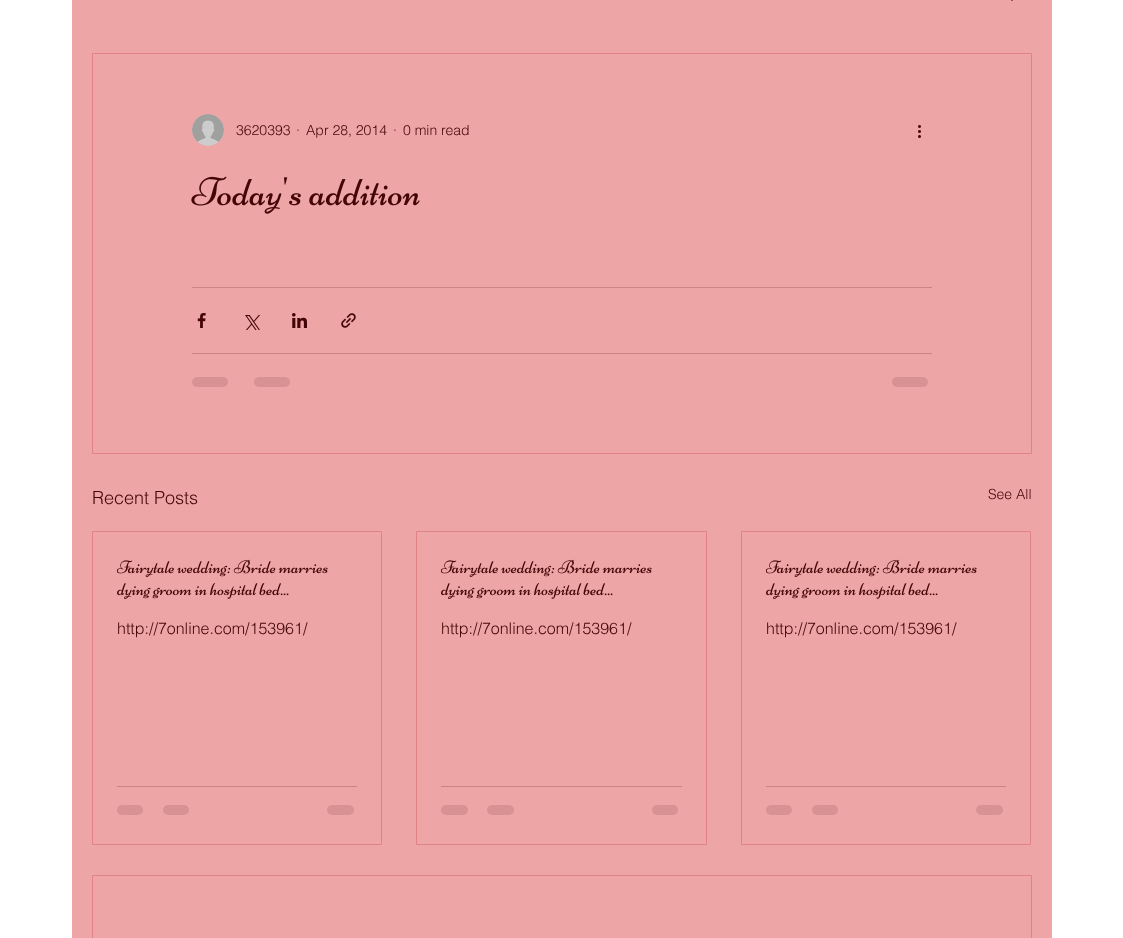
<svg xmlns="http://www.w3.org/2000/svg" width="1123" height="938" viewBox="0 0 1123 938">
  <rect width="100%" height="100%" fill="#fff"/>
  <path d="M72 0h980v938H72z" fill="#eda5a6"/>
  <path d="M1011 0h2v1H1011z" fill="#9a5758"/>
  <path d="M92.5 53.5h939v400H92.5z" fill="none" stroke="#e18384"/>
  <image x="192" y="114" width="32" height="32" href="img/1.png"/>
  <image x="918" y="125" width="3" height="13" href="img/2.png"/>
  <image x="191" y="176" width="229" height="38" href="img/3.png"/>
  <path d="M192 287h740v1H192z" fill="#cb8586"/>
  <image x="197" y="313" width="9" height="15" href="img/4.png"/>
  <image x="245" y="315" width="15" height="15" href="img/5.png"/>
  <image x="292" y="313" width="15" height="15" href="img/6.png"/>
  <image x="341" y="313" width="15" height="15" href="img/7.png"/>
  <path d="M192 353h740v1H192z" fill="#cb8586"/>
  <rect x="192" y="377" width="36" height="10" rx="5" fill="#d99293"/>
  <rect x="254" y="377" width="36" height="10" rx="5" fill="#d99293"/>
  <rect x="892" y="377" width="36" height="10" rx="5" fill="#d99293"/>
  <path d="M92.5 531.5h289v313H92.5z" fill="none" stroke="#e18384"/>
  <image x="117" y="559" width="211" height="18" href="img/8.png"/>
  <image x="117" y="583" width="172" height="16" href="img/9.png"/>
  <path d="M117 786h240v1H117z" fill="#cb8586"/>
  <rect x="117" y="805" width="26" height="10" rx="5" fill="#d99293"/>
  <rect x="163" y="805" width="26" height="10" rx="5" fill="#d99293"/>
  <rect x="327" y="805" width="27" height="10" rx="5" fill="#d99293"/>
  <path d="M416.5 531.5h290v313H416.5z" fill="none" stroke="#e18384"/>
  <image x="441" y="559" width="211" height="18" href="img/8.png"/>
  <image x="441" y="583" width="172" height="16" href="img/9.png"/>
  <path d="M441 786h241v1H441z" fill="#cb8586"/>
  <rect x="441" y="805" width="27" height="10" rx="5" fill="#d99293"/>
  <rect x="487" y="805" width="27" height="10" rx="5" fill="#d99293"/>
  <rect x="652" y="805" width="26" height="10" rx="5" fill="#d99293"/>
  <path d="M741.5 531.5h289v313H741.5z" fill="none" stroke="#e18384"/>
  <image x="766" y="559" width="211" height="18" href="img/8.png"/>
  <image x="766" y="583" width="172" height="16" href="img/9.png"/>
  <path d="M766 786h240v1H766z" fill="#cb8586"/>
  <rect x="766" y="805" width="26" height="10" rx="5" fill="#d99293"/>
  <rect x="812" y="805" width="26" height="10" rx="5" fill="#d99293"/>
  <rect x="976" y="805" width="27" height="10" rx="5" fill="#d99293"/>
  <path d="M92.5 875.5h939v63H92.5z" fill="none" stroke="#e18384"/>
  <g font-family="helvetica" font-size="14" font-weight="300" fill="#440506">
    <text x="236" y="135">3620393</text>
    <text x="296" y="135">·</text>
    <text x="306" y="135">Apr 28, 2014</text>
    <text x="393" y="135">·</text>
    <text x="403" y="135">0 min read</text>
  </g>
  <text x="92" y="504" font-family="helvetica" font-size="18" font-weight="300" fill="#440506">Recent Posts</text>
  <text x="988" y="499" font-family="helvetica" font-size="14" font-weight="300" fill="#440506">See All</text>
  <g font-family="helvetica" font-size="16" font-weight="300" fill="#440506">
    <text x="117" y="634">http://7online.com/153961/</text>
    <text x="441" y="634">http://7online.com/153961/</text>
    <text x="766" y="634">http://7online.com/153961/</text>
  </g>
</svg>
